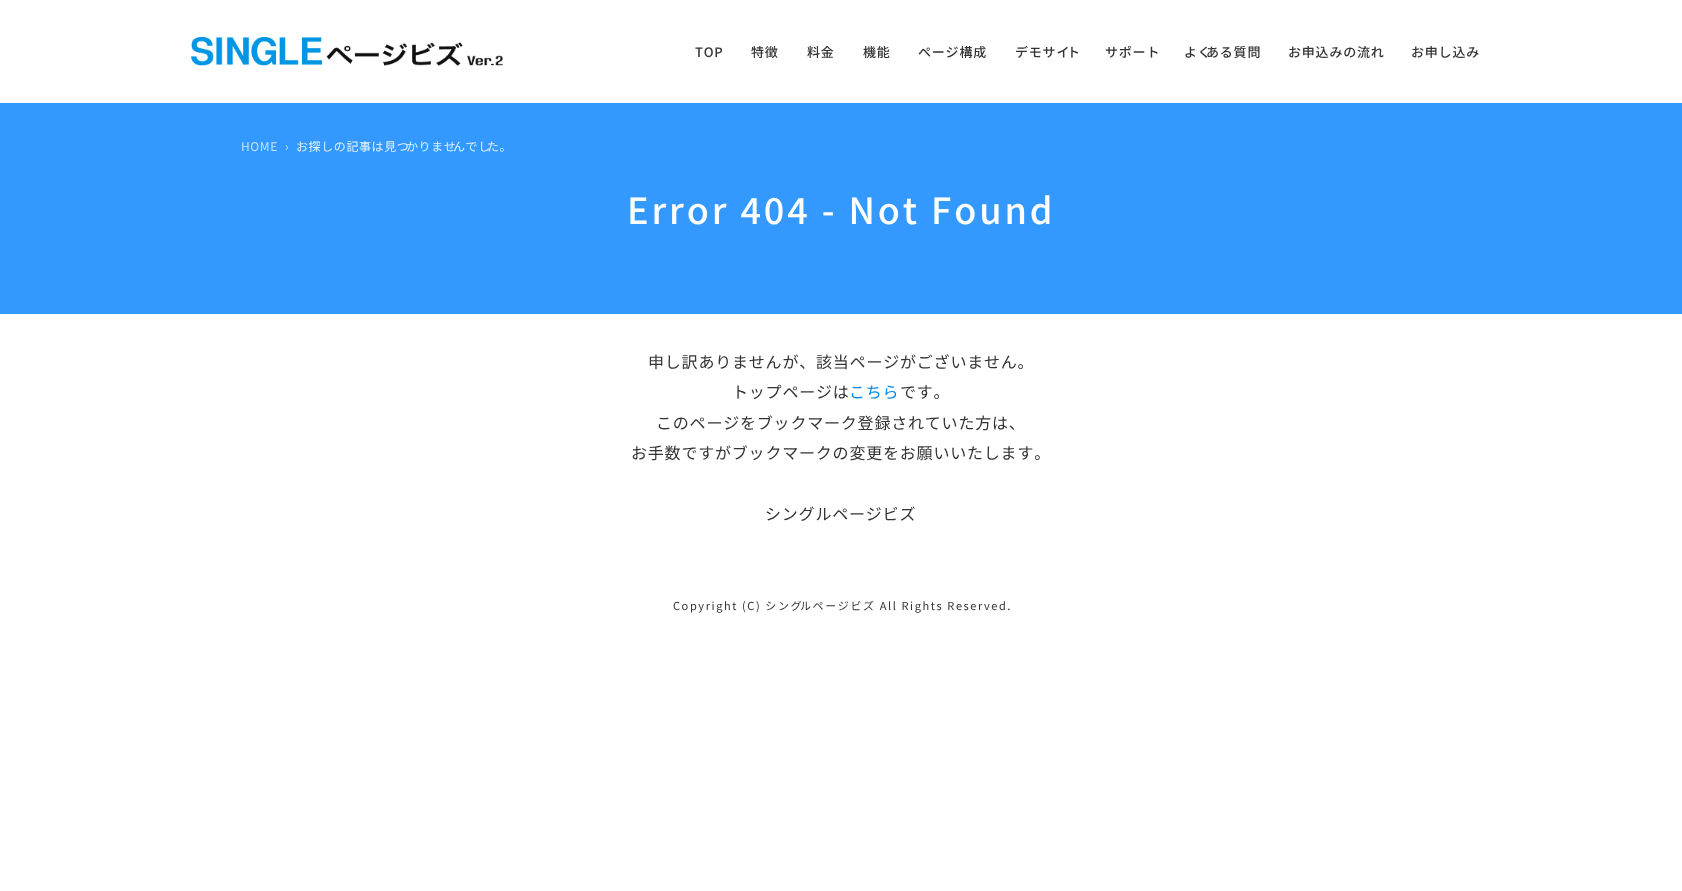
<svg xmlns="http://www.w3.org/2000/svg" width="1682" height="891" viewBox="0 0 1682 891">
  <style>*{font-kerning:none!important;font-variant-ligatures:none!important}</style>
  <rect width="100%" height="100%" fill="#fff"/>
  <image x="191" y="37" width="312" height="29" href="img/1.png"/>
  <path d="M0 103h1682v211H0z" fill="#39f"/>
  <g font-family="Noto Sans JP" font-size="13" font-weight="500" letter-spacing="0.8" fill="#333">
    <text x="695" y="57">TOP</text>
    <text x="751" y="57">特徴</text>
    <text x="807" y="57">料金</text>
    <text x="863" y="57">機能</text>
    <text x="918" y="57">ページ構成</text>
    <text x="1015" y="57">デモサイ</text>
    <text x="1067" y="57">ト</text>
    <text x="1105" y="57">サポート</text>
    <text x="1184" y="57">よく</text>
    <text x="1206" y="57">ある質問</text>
    <text x="1288" y="57">お申込みの流れ</text>
    <text x="1411" y="57">お申し込み</text>
  </g>
  <g font-family="Noto Sans JP" font-size="12" letter-spacing="0.6" fill="#c6e3ff">
    <text x="241" y="151">HOME</text>
    <text x="285" y="151">›</text>
  </g>
  <text x="296" y="151" font-family="Noto Sans JP" font-size="12" letter-spacing="0.6" fill="#e0f0ff">お探しの記事は見つ</text>
  <text x="406" y="151" font-family="Noto Sans JP" font-size="12" letter-spacing="0.6" fill="#e0f0ff">かりませ</text>
  <text x="453" y="151" font-family="Noto Sans JP" font-size="12" letter-spacing="0.6" fill="#e0f0ff">んでし</text>
  <text x="487" y="151" font-family="Noto Sans JP" font-size="12" letter-spacing="0.6" fill="#e0f0ff">た。</text>
  <text x="627" y="224" font-family="Noto Sans JP" font-size="36" font-weight="500" letter-spacing="2.9" fill="#fff">Error 404 - Not Found</text>
  <g font-family="Noto Sans JP" font-size="16" letter-spacing="0.8" fill="#333">
    <text x="648" y="368">申し訳ありませんが、該当ページがございません。</text>
    <text x="732" y="398">トップページは</text>
  </g>
  <text x="849" y="398" font-family="Noto Sans JP" font-size="16" letter-spacing="0.8" fill="#0087ef">こちら</text>
  <g font-family="Noto Sans JP" font-size="16" letter-spacing="0.8" fill="#333">
    <text x="900" y="398">です。</text>
    <text x="656" y="429">このページをブックマーク登録されていた方は、</text>
    <text x="631" y="459">お手数ですがブックマークの変更をお願いいたします。</text>
    <text x="765" y="520">シングルページビズ</text>
  </g>
  <text x="673" y="610" font-family="Noto Sans JP" font-size="11" letter-spacing="1.6" fill="#333">Copyright (C) シング</text>
  <text x="800" y="610" font-family="Noto Sans JP" font-size="11" letter-spacing="1.6" fill="#333">ルページビズ All Rights Reserved.</text>
</svg>
